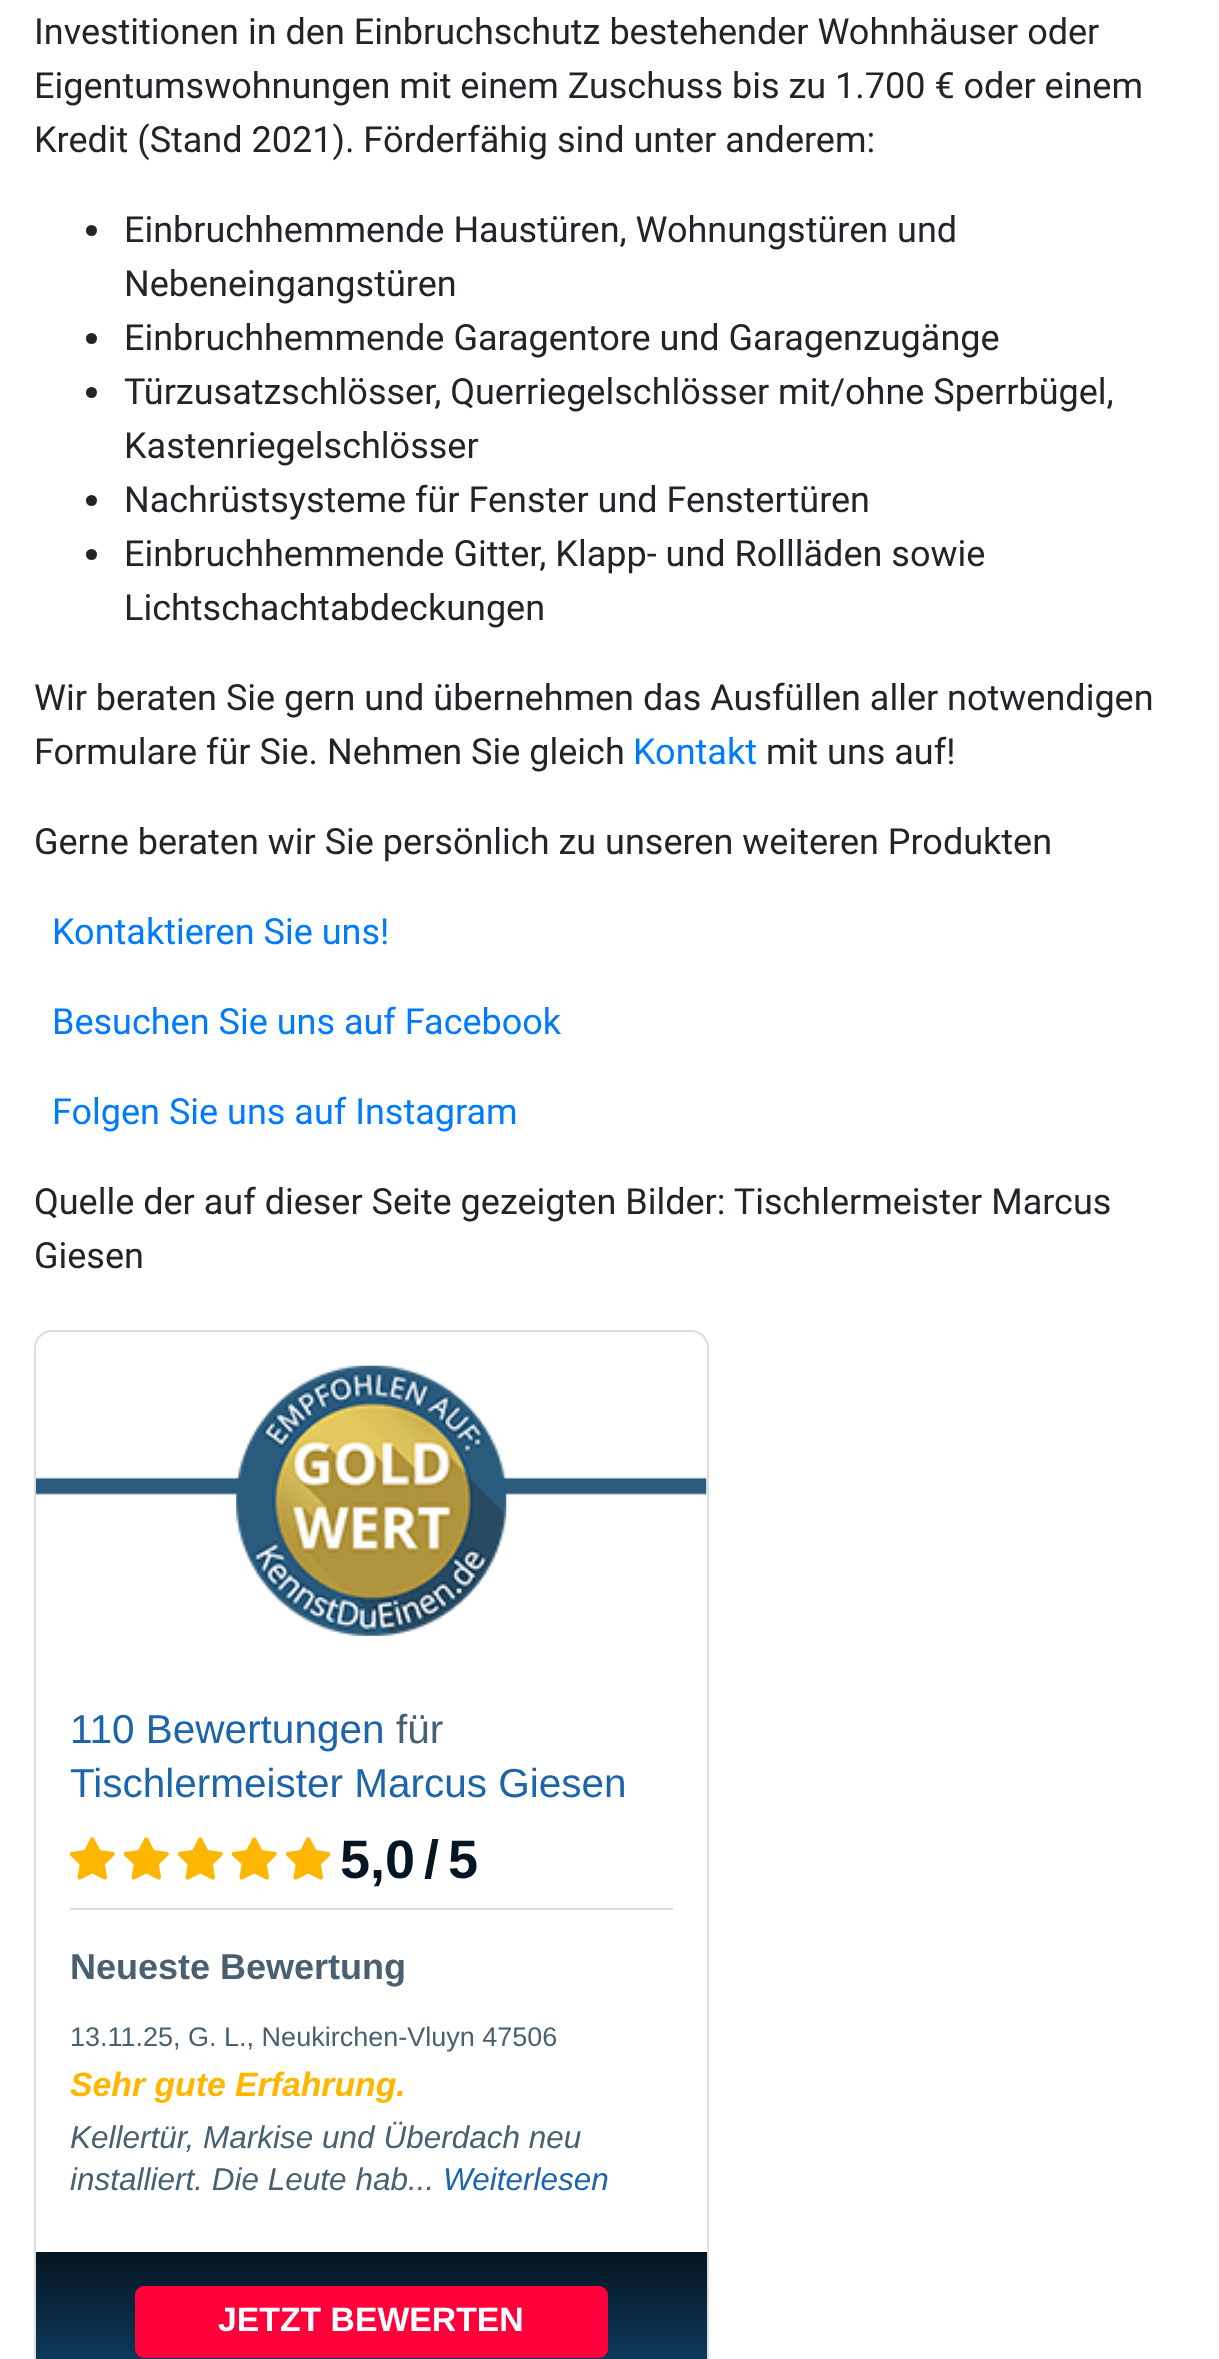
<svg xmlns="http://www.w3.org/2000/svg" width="1219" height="2359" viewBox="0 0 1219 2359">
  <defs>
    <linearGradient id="g1" gradientUnits="userSpaceOnUse" x1="371" y1="2252" x2="371" y2="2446"><stop offset="0" stop-color="#051522"/><stop offset="1" stop-color="#125688"/></linearGradient>
  </defs>
  <rect width="100%" height="100%" fill="#fff"/>
  <circle cx="91.5" cy="230.5" r="5.5" fill="#212529"/>
  <circle cx="91.5" cy="338.5" r="5.5" fill="#212529"/>
  <circle cx="91.5" cy="392.5" r="5.5" fill="#212529"/>
  <circle cx="91.5" cy="500.5" r="5.5" fill="#212529"/>
  <circle cx="91.5" cy="554.5" r="5.5" fill="#212529"/>
  <rect x="35" y="1331" width="673" height="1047" rx="17" fill="none" stroke="#ddd" stroke-width="2"/>
  <image x="36" y="1477" width="671" height="18" href="img/1.png"/>
  <image x="236" y="1365" width="271" height="271" href="img/2.png"/>
  <path d="M70 1908h603v2H70z" fill="#ddd"/>
  <image x="70" y="1837" width="45" height="43" href="img/3.png"/>
  <image x="124" y="1837" width="45" height="43" href="img/3.png"/>
  <image x="178" y="1837" width="45" height="43" href="img/3.png"/>
  <image x="232" y="1837" width="45" height="43" href="img/3.png"/>
  <image x="286" y="1837" width="45" height="43" href="img/4.png"/>
  <path d="M36 2252h671v107H36z" fill="url(#g1)"/>
  <rect x="135" y="2286" width="473" height="72" rx="9" fill="#ff003a"/>
  <g font-family="Roboto" font-size="36" fill="#212529">
    <text x="34" y="44">Investitionen in den Einbruchschutz bestehender Wohnhäuser oder</text>
    <text x="34" y="98">Eigentumswohnungen mit einem Zuschuss bis zu 1.700 € oder einem</text>
    <text x="34" y="152">Kredit (Stand 2021). Förderfähig sind unter anderem:</text>
    <text x="124" y="242">Einbruchhemmende Haustüren, Wohnungstüren und</text>
    <text x="124" y="296">Nebeneingangstüren</text>
    <text x="124" y="350">Einbruchhemmende Garagentore und Garagenzugänge</text>
    <text x="124" y="404">Türzusatzschlösser, Querriegelschlösser mit/ohne Sperrbügel,</text>
    <text x="124" y="458">Kastenriegelschlösser</text>
    <text x="124" y="512">Nachrüstsysteme für Fenster und Fenstertüren</text>
    <text x="124" y="566">Einbruchhemmende Gitter, Klapp- und Rollläden sowie</text>
    <text x="124" y="620">Lichtschachtabdeckungen</text>
    <text x="34" y="710">Wir beraten Sie gern und übernehmen das Ausfüllen aller notwendigen</text>
    <text x="34" y="764">Formulare für Sie. Nehmen Sie gleich</text>
  </g>
  <text x="633" y="764" font-family="Roboto" font-size="36" fill="#007bff">Kontakt</text>
  <g font-family="Roboto" font-size="36" fill="#212529">
    <text x="766" y="764">mit uns auf!</text>
    <text x="34" y="854">Gerne beraten wir Sie persönlich zu unseren weiteren Produkten</text>
  </g>
  <g font-family="Roboto" font-size="36" fill="#007bff">
    <text x="52" y="944">Kontaktieren Sie uns!</text>
    <text x="52" y="1034">Besuchen Sie uns auf Facebook</text>
    <text x="52" y="1124">Folgen Sie uns auf Instagram</text>
  </g>
  <g font-family="Roboto" font-size="36" fill="#212529">
    <text x="34" y="1214">Quelle der auf dieser Seite gezeigten Bilder: Tischlermeister Marcus</text>
    <text x="34" y="1268">Giesen</text>
  </g>
  <text x="70" y="1743" font-family="Liberation Sans" font-size="40.5" fill="#1c64ac">110 Bewertungen</text>
  <text x="396" y="1743" font-family="Liberation Sans" font-size="40.5" fill="#486071">für</text>
  <text x="70" y="1797" font-family="Liberation Sans" font-size="40.5" fill="#1c64ac">Tischlermeister Marcus Giesen</text>
  <g font-family="Liberation Sans" font-size="54" font-weight="bold" fill="#051522">
    <text x="340" y="1878">5,0</text>
    <text x="424" y="1878">/</text>
    <text x="448" y="1878">5</text>
  </g>
  <text x="70" y="1979" font-family="Liberation Sans" font-size="36" font-weight="bold" fill="#486071">Neueste Bewertung</text>
  <text x="70" y="2046" font-family="Liberation Sans" font-size="27" fill="#486071">13.11.25, G. L., Neukirchen-Vluyn 47506</text>
  <text x="70" y="2096" font-family="Liberation Sans" font-size="33.75" font-weight="bold" font-style="italic" fill="#feb600">Sehr gute Erfahrung.</text>
  <g font-family="Liberation Sans" font-size="31.5" font-style="italic" fill="#486071">
    <text x="70" y="2148">Kellertür, Markise und Überdach neu</text>
    <text x="70" y="2190">installiert. Die Leute hab...</text>
  </g>
  <text x="443" y="2190" font-family="Liberation Sans" font-size="31.5" font-style="italic" fill="#1c64ac">Weiterlesen</text>
  <text x="218" y="2331" font-family="Liberation Sans" font-size="33.75" font-weight="bold" fill="#fff">JETZT BEWERTEN</text>
</svg>
